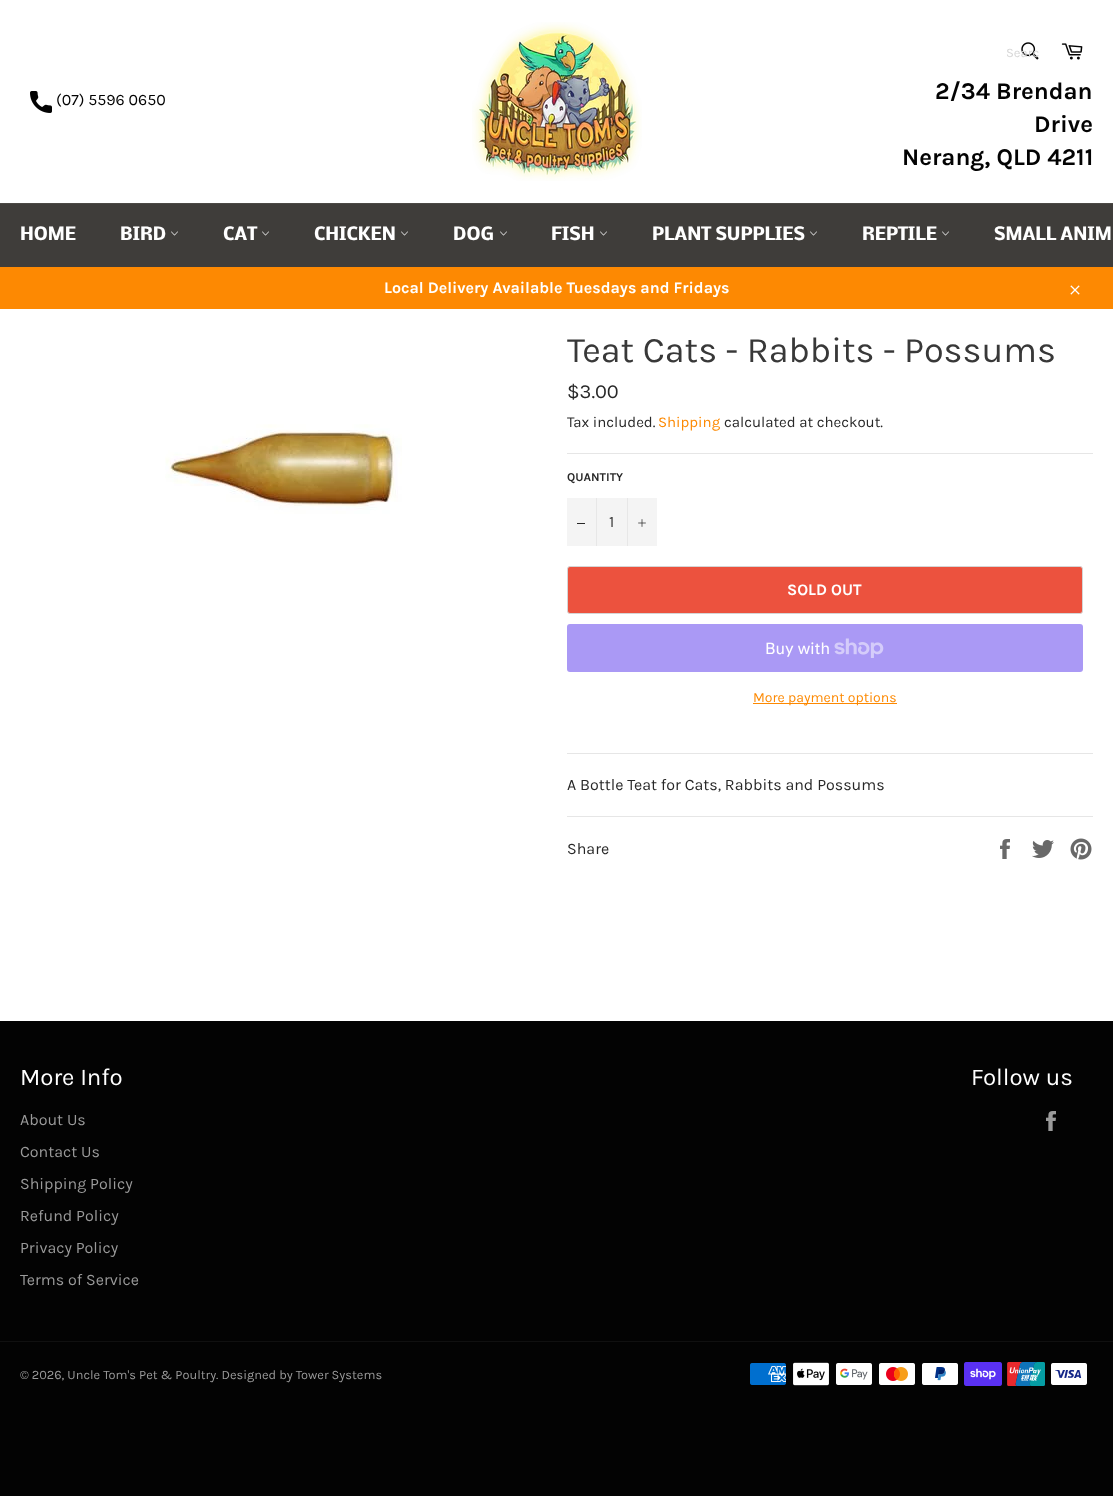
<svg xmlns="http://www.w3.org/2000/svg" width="1113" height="1496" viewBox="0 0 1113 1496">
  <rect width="100%" height="100%" fill="#030303"/>
  <path d="M0 0h1113v203H0z" fill="#fff"/>
  <image x="30" y="91" width="22" height="22" href="img/1.png"/>
  <image x="472" y="22" width="170" height="159" href="img/2.png"/>
  <image x="1021" y="42" width="18" height="18" href="img/3.png"/>
  <image x="1061" y="43" width="22" height="17" href="img/4.png"/>
  <path d="M0 204h1113v63H0z" fill="#3f3d3a"/>
  <path d="M0 203h1113v1H0z" fill="#4c4a46"/>
  <image x="171" y="231" width="7" height="5" href="img/5.png"/>
  <image x="262" y="231" width="7" height="5" href="img/5.png"/>
  <image x="401" y="231" width="7" height="5" href="img/5.png"/>
  <image x="500" y="231" width="7" height="5" href="img/5.png"/>
  <image x="600" y="231" width="7" height="5" href="img/5.png"/>
  <image x="810" y="231" width="7" height="5" href="img/5.png"/>
  <image x="942" y="231" width="7" height="5" href="img/5.png"/>
  <path d="M0 267h1113v42H0z" fill="#fd8902"/>
  <image x="1070" y="285" width="10" height="10" href="img/6.png"/>
  <path d="M0 309h1113v712H0z" fill="#fff"/>
  <image x="165" y="424" width="237" height="90" href="img/7.png"/>
  <path d="M567 453h526v1H567z" fill="#e6e6e6"/>
  <path d="M567 498h90v48H567z" fill="#f4f4f4"/>
  <path d="M596 498h1v48H596z" fill="#e7e7e7"/>
  <path d="M577 523h8v1H577z" fill="#282828"/>
  <path d="M627 498h1v48H627z" fill="#e7e7e7"/>
  <image x="638" y="519" width="8" height="8" href="img/8.png"/>
  <rect x="567.5" y="566.5" width="515" height="47" rx="2.5" fill="#ec523e" stroke="#d5d5d5"/>
  <rect x="567" y="624" width="516" height="48" rx="3" fill="#aa99f5"/>
  <image x="834" y="638" width="50" height="20" href="img/9.png"/>
  <path d="M753 703h144v1H753z" fill="#fd8902"/>
  <path d="M567 753h526v1H567z" fill="#e6e6e6"/>
  <path d="M567 816h526v1H567z" fill="#e6e6e6"/>
  <image x="1000" y="839" width="10" height="20" href="img/10.png"/>
  <image x="1032" y="840" width="22" height="18" href="img/11.png"/>
  <image x="1070" y="838" width="22" height="22" href="img/12.png"/>
  <image x="1046" y="1111" width="10" height="20" href="img/13.png"/>
  <path d="M0 1341h1113v1H0z" fill="#101010"/>
  <image x="750" y="1363" width="36" height="22" href="img/14.png"/>
  <image x="793" y="1362" width="36" height="24" href="img/15.png"/>
  <image x="836" y="1363" width="36" height="22" href="img/16.png"/>
  <image x="879" y="1363" width="36" height="22" href="img/17.png"/>
  <image x="922" y="1363" width="36" height="22" href="img/18.png"/>
  <image x="964" y="1362" width="38" height="24" href="img/19.png"/>
  <image x="1007" y="1362" width="38" height="24" href="img/20.png"/>
  <image x="1051" y="1363" width="36" height="22" href="img/21.png"/>
  <text x="56" y="105" font-family="Karla" font-size="16" fill="#030303">(07) 5596 0650</text>
  <text x="1006" y="57" font-family="Karla" font-size="13" fill="#d7d7d7">Searc</text>
  <g font-family="Karla" font-size="24" font-weight="bold" fill="#030303">
    <text x="935" y="99">2/34 Brendan</text>
    <text x="1034" y="132">Drive</text>
    <text x="902" y="165">Nerang, QLD 4211</text>
  </g>
  <g font-family="Nobile" font-size="17" font-weight="bold" fill="#fff">
    <text x="20" y="240">HOME</text>
    <text x="120" y="240">BIRD</text>
    <text x="223" y="240">CAT</text>
    <text x="314" y="240">CHICKEN</text>
    <text x="453" y="240">DOG</text>
    <text x="551" y="240">FISH</text>
    <text x="652" y="240">PLANT SUPPLIES</text>
    <text x="862" y="240">REPTILE</text>
    <text x="994" y="240">SMALL ANIM</text>
  </g>
  <text x="384" y="293" font-family="Karla" font-size="16" font-weight="bold" fill="#fff">Local Delivery Available Tuesdays and Fridays</text>
  <text x="567" y="362" font-family="Karla" font-size="36" fill="#383838">Teat Cats - Rabbits - Possums</text>
  <text x="567" y="398" font-family="Karla" font-size="20" fill="#282828">$3.00</text>
  <text x="567" y="427" font-family="Karla" font-size="15" fill="#282828">Tax included.</text>
  <text x="658" y="427" font-family="Karla" font-size="15" fill="#fd8902">Shipping</text>
  <text x="724" y="427" font-family="Karla" font-size="15" fill="#282828">calculated at checkout.</text>
  <text x="567" y="481" font-family="Karla" font-size="12" font-weight="bold" fill="#282828">QUANTITY</text>
  <text x="609" y="527" font-family="Karla" font-size="16" fill="#383838">1</text>
  <text x="787" y="595" font-family="Karla" font-size="16" font-weight="bold" fill="#fff">SOLD OUT</text>
  <text x="765" y="654" font-family="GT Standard" font-size="16" fill="#fff">Buy with</text>
  <text x="753" y="702" font-family="Karla" font-size="14" fill="#fd8902">More payment options</text>
  <g font-family="Karla" font-size="16" fill="#282828">
    <text x="567" y="790">A Bottle Teat for Cats, Rabbits and Possums</text>
    <text x="567" y="854">Share</text>
  </g>
  <text x="20" y="1085" font-family="Karla" font-size="24" fill="#fff">More Info</text>
  <g font-family="Karla" font-size="16" fill="#9a9a9a">
    <text x="20" y="1125">About Us</text>
    <text x="20" y="1157">Contact Us</text>
    <text x="20" y="1189">Shipping Policy</text>
    <text x="20" y="1221">Refund Policy</text>
    <text x="20" y="1253">Privacy Policy</text>
    <text x="20" y="1285">Terms of Service</text>
  </g>
  <text x="971" y="1085" font-family="Karla" font-size="24" fill="#fff">Follow us</text>
  <text x="20" y="1379" font-family="Karla" font-size="12.8" fill="#9a9a9a">© 2026, Uncle Tom's Pet &amp; Poultry. Designed by Tower Systems</text>
</svg>
